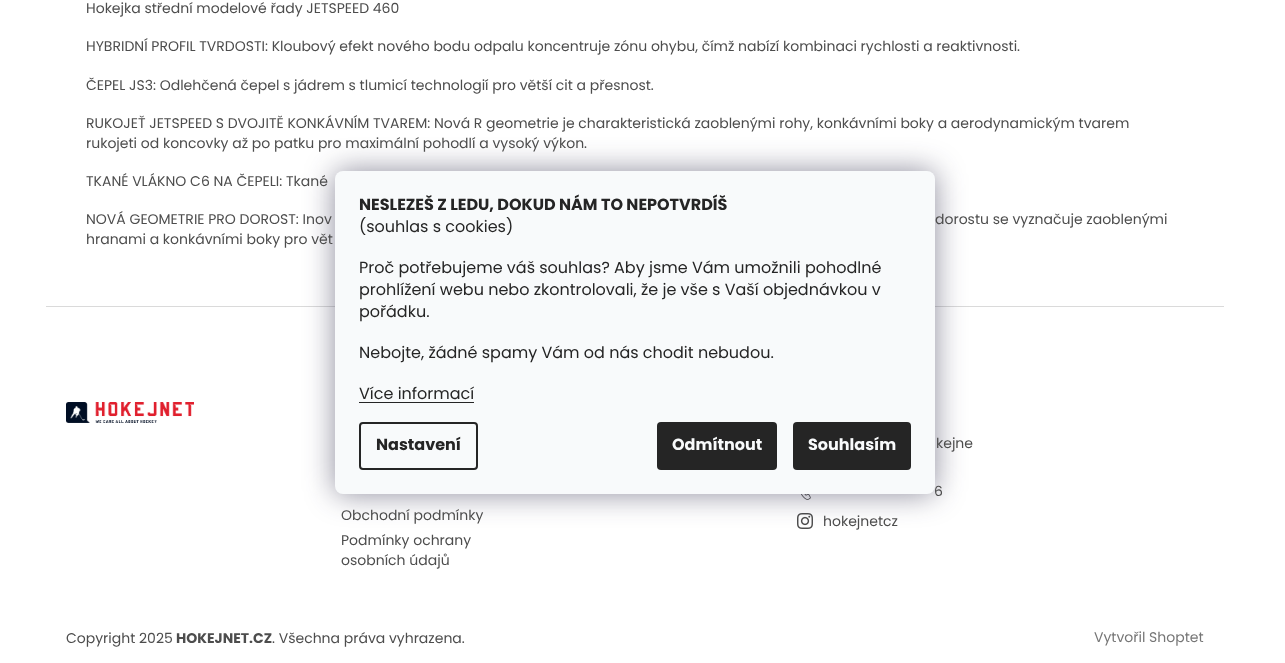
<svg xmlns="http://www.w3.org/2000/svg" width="1285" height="663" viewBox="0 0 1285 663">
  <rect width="100%" height="100%" fill="#fff"/>
  <image x="66" y="402" width="128" height="21" href="img/1.png"/>
  <path d="M46 306h1178v1H46z" fill="#dadada"/>
  <image x="801" y="494" width="10" height="6" href="img/2.png"/>
  <image x="797" y="513" width="16" height="16" href="img/3.png"/>
  <rect x="335" y="171" width="600" height="323" rx="8" fill="#1b193980" filter="blur(15px)"/>
  <g font-family="Poppins" font-size="14" fill="#4d4d4d">
    <text x="86" y="13">Hokejka střední modelové řady JETSPEED 460</text>
    <text x="86" y="51">HYBRIDNÍ PROFIL TVRDOSTI: Kloubový efekt nového bodu odpalu koncentruje zónu ohybu, čímž nabízí kombinaci rychlosti a reaktivnosti.</text>
    <text x="86" y="90">ČEPEL JS3: Odlehčená čepel s jádrem s tlumicí technologií pro větší cit a přesnost.</text>
    <text x="86" y="128">RUKOJEŤ JETSPEED S DVOJITĚ KONKÁVNÍM TVAREM: Nová R geometrie je charakteristická zaoblenými rohy, konkávními boky a aerodynamickým tvarem</text>
    <text x="86" y="148">rukojeti od koncovky až po patku pro maximální pohodlí a vysoký výkon.</text>
    <text x="86" y="186">TKANÉ VLÁKNO C6 NA ČEPELI: Tkané</text>
    <text x="86" y="224">NOVÁ GEOMETRIE PRO DOROST: Inov</text>
    <text x="935" y="224">dorostu se vyznačuje zaoblenými</text>
    <text x="86" y="244">hranami a konkávními boky pro vět</text>
    <text x="936" y="448">kejne</text>
    <text x="934" y="496">6</text>
    <text x="823" y="526">hokejnetcz</text>
    <text x="341" y="520">Obchodní podmínky</text>
    <text x="341" y="545">Podmínky ochrany</text>
    <text x="341" y="565">osobních údajů</text>
    <text x="66" y="643">Copyright 2025</text>
  </g>
  <text x="176" y="643" font-family="Poppins" font-size="14" font-weight="bold" fill="#4d4d4d">HOKEJNET.CZ</text>
  <text x="272" y="643" font-family="Poppins" font-size="14" fill="#4d4d4d">. Všechna práva vyhrazena.</text>
  <text x="1094" y="642" font-family="Poppins" font-size="14" fill="#767676">Vytvořil Shoptet</text>
  <rect x="335" y="171" width="600" height="323" rx="8" fill="#f8fafb"/>
  <text x="359" y="210" font-family="Poppins" font-size="16" font-weight="bold" fill="#252525">NESLEZEŠ Z LEDU, DOKUD NÁM TO NEPOTVRDÍŠ</text>
  <g font-family="Poppins" font-size="16" fill="#252525">
    <text x="359" y="232">(souhlas s cookies)</text>
    <text x="359" y="273">Proč potřebujeme váš souhlas? Aby jsme Vám umožnili pohodlné</text>
    <text x="359" y="295">prohlížení webu nebo zkontrolovali, že je vše s Vaší objednávkou v</text>
    <text x="359" y="317">pořádku.</text>
    <text x="359" y="358">Nebojte, žádné spamy Vám od nás chodit nebudou.</text>
    <text x="359" y="399">Více informací</text>
  </g>
  <path d="M359 402h115v1H359z" fill="#252525"/>
  <rect x="360" y="423" width="117" height="46" rx="3" fill="none" stroke="#252525" stroke-width="2"/>
  <text x="376" y="450" font-family="Poppins" font-size="16" font-weight="bold" fill="#252525">Nastavení</text>
  <rect x="657" y="422" width="120" height="48" rx="4" fill="#252525"/>
  <text x="672" y="450" font-family="Poppins" font-size="16" font-weight="bold" fill="#f8fafb">Odmítnout</text>
  <rect x="793" y="422" width="118" height="48" rx="4" fill="#252525"/>
  <text x="808" y="450" font-family="Poppins" font-size="16" font-weight="bold" fill="#f8fafb">Souhlasím</text>
</svg>
